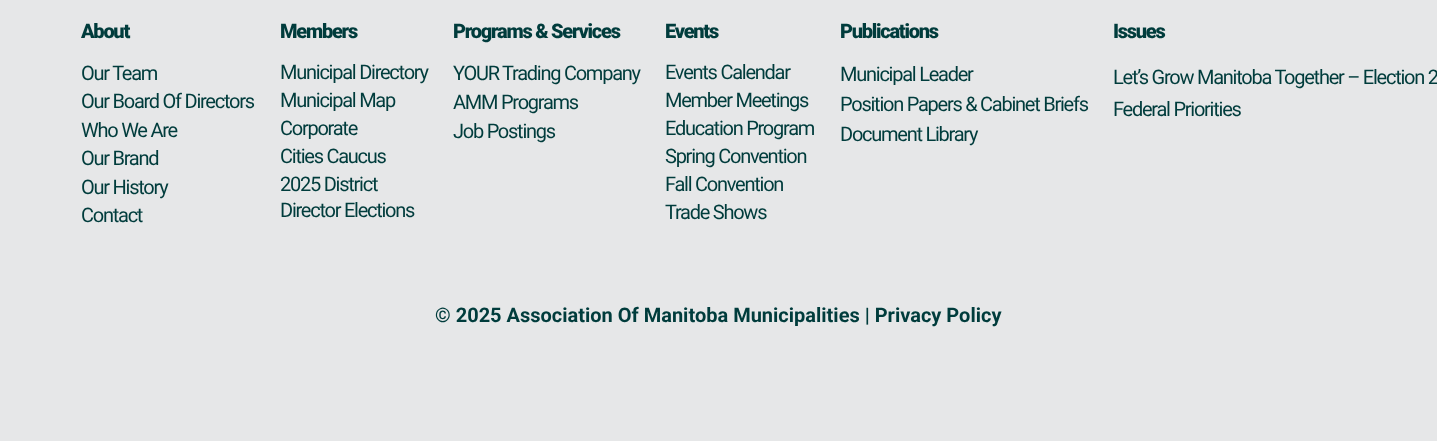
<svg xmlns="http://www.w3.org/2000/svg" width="1437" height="441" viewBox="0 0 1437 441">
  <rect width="100%" height="100%" fill="#e6e7e8"/>
  <text x="81" y="38" font-family="Roboto" font-size="20" font-weight="900" letter-spacing="-1.25" fill="#003c3c">About</text>
  <g font-family="Roboto" font-size="20" letter-spacing="-1.25" fill="#003c3c">
    <text x="81" y="80">Our Team</text>
    <text x="81" y="108">Our Board Of Directors</text>
    <text x="81" y="137">Who We Are</text>
    <text x="81" y="165">Our Brand</text>
    <text x="81" y="194">Our History</text>
    <text x="81" y="222">Contact</text>
  </g>
  <text x="280" y="38" font-family="Roboto" font-size="20" font-weight="900" letter-spacing="-1.25" fill="#003c3c">Members</text>
  <g font-family="Roboto" font-size="20" letter-spacing="-1.25" fill="#003c3c">
    <text x="280" y="79">Municipal Directory</text>
    <text x="280" y="107">Municipal Map</text>
    <text x="280" y="135">Corporate</text>
    <text x="280" y="163">Cities Caucus</text>
    <text x="280" y="191">2025 District</text>
    <text x="280" y="217">Director Elections</text>
  </g>
  <text x="453" y="38" font-family="Roboto" font-size="20" font-weight="900" letter-spacing="-1.25" fill="#003c3c">Programs &amp; Services</text>
  <g font-family="Roboto" font-size="20" letter-spacing="-1.25" fill="#003c3c">
    <text x="453" y="80">YOUR Trading Company</text>
    <text x="453" y="109">AMM Programs</text>
    <text x="453" y="138">Job Postings</text>
  </g>
  <text x="665" y="38" font-family="Roboto" font-size="20" font-weight="900" letter-spacing="-1.25" fill="#003c3c">Events</text>
  <g font-family="Roboto" font-size="20" letter-spacing="-1.25" fill="#003c3c">
    <text x="665" y="79">Events Calendar</text>
    <text x="665" y="107">Member Meetings</text>
    <text x="665" y="135">Education Program</text>
    <text x="665" y="163">Spring Convention</text>
    <text x="665" y="191">Fall Convention</text>
    <text x="665" y="219">Trade Shows</text>
  </g>
  <text x="840" y="38" font-family="Roboto" font-size="20" font-weight="900" letter-spacing="-1.25" fill="#003c3c">Publications</text>
  <g font-family="Roboto" font-size="20" letter-spacing="-1.25" fill="#003c3c">
    <text x="840" y="81">Municipal Leader</text>
    <text x="840" y="111">Position Papers &amp; Cabinet Briefs</text>
    <text x="840" y="141">Document Library</text>
  </g>
  <text x="1113" y="38" font-family="Roboto" font-size="20" font-weight="900" letter-spacing="-1.25" fill="#003c3c">Issues</text>
  <g font-family="Roboto" font-size="20" letter-spacing="-1.25" fill="#003c3c">
    <text x="1113" y="84">Let’s Grow Manitoba Together – Election 2</text>
    <text x="1113" y="116">Federal Priorities</text>
  </g>
  <text x="435" y="322" font-family="Roboto" font-size="20" font-weight="bold" fill="#003c3c">© 2025 Association Of Manitoba Municipalities | Privacy Policy</text>
</svg>
